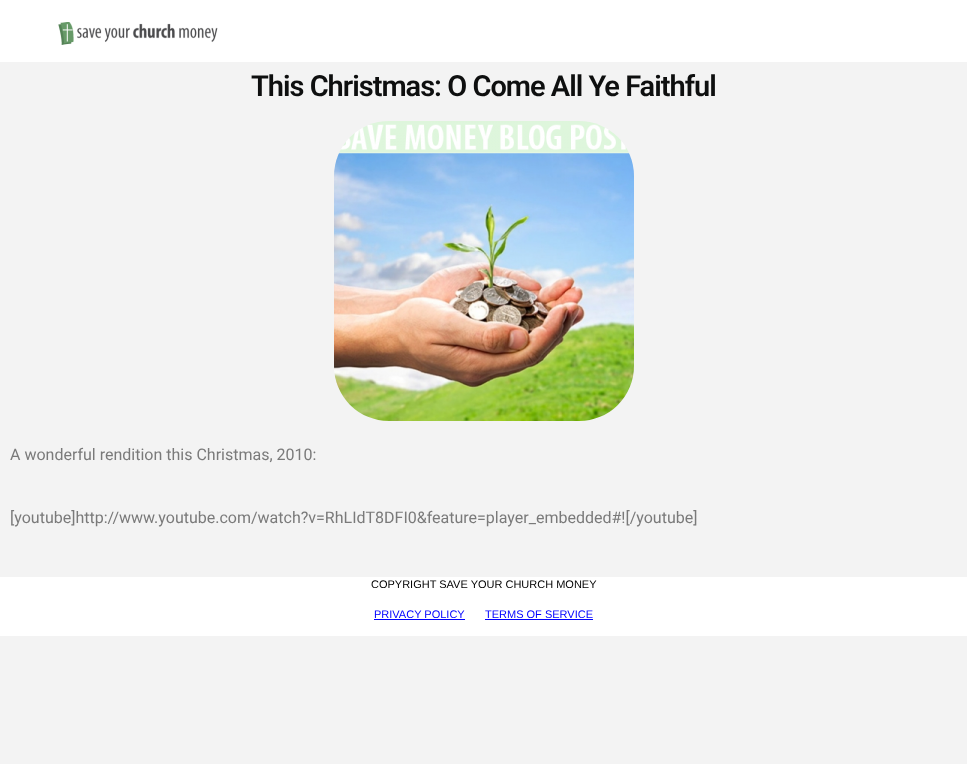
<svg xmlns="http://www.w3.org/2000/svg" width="967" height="764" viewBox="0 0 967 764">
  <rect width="100%" height="100%" fill="#f3f3f3"/>
  <path d="M0 0h967v62H0z" fill="#fff"/>
  <image x="58" y="22" width="160" height="23" href="img/1.png"/>
  <image x="334" y="121" width="300" height="300" href="img/2.png"/>
  <path d="M0 577h967v59H0z" fill="#fff"/>
  <path d="M374 619h91v1H374z" fill="#00f"/>
  <path d="M485 619h108v1H485z" fill="#00f"/>
  <text x="251" y="96" font-family="Roboto" font-size="29" font-weight="600" letter-spacing="-1" fill="#0e0f0f">This Christmas: O Come All Ye Faithful</text>
  <g font-family="Roboto" font-size="16" fill="#7a7a7a">
    <text x="10" y="460">A wonderful rendition this Christmas, 2010:</text>
    <text x="10" y="523">[youtube]http://www.youtube.com/watch?v=RhLIdT8DFI0&amp;feature=player_embedded#![/youtube]</text>
  </g>
  <text x="371" y="588" font-family="Liberation Sans" font-size="11" fill="#000">COPYRIGHT SAVE YOUR CHURCH MONEY</text>
  <g font-family="Liberation Sans" font-size="11" fill="#00f">
    <text x="374" y="618">PRIVACY POLICY</text>
    <text x="485" y="618">TERMS OF SERVICE</text>
  </g>
</svg>
